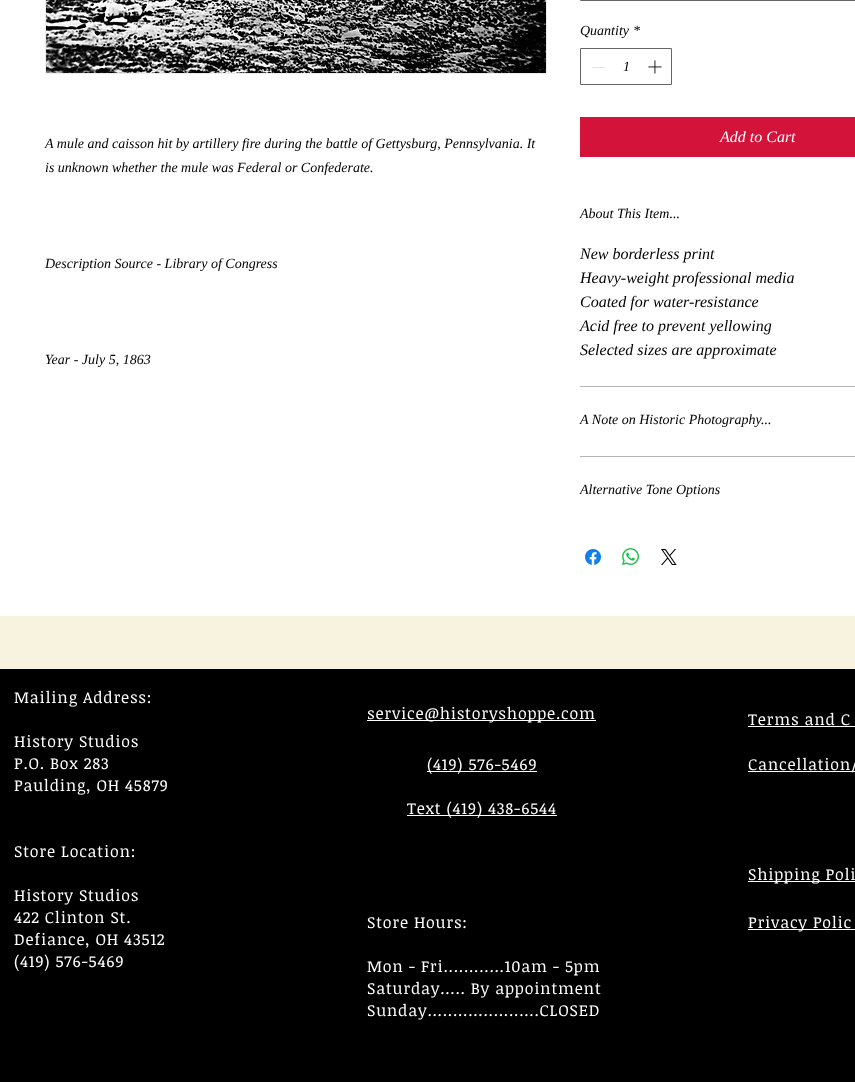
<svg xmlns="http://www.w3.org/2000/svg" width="855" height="1082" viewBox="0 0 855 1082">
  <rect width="100%" height="100%" fill="#f8f3de"/>
  <path d="M0 0h855v616H0z" fill="#fff"/>
  <path d="M45.5 -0.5h501v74H45.5z" fill="none" stroke="#ececec"/>
  <image x="46" y="0" width="500" height="73" href="img/1.png"/>
  <path d="M580.5 -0.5h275v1H580.5z" fill="none" stroke="#666"/>
  <path d="M580.5 48.5h91v36H580.5z" fill="none" stroke="#666"/>
  <path d="M592 67h13v1H592z" fill="#e3e3e3"/>
  <image x="648" y="60" width="14" height="14" href="img/2.png"/>
  <path d="M580 117h275v40H580z" fill="#d4133a"/>
  <path d="M580 386h275v1H580z" fill="#b5b4b4"/>
  <path d="M580 456h275v1H580z" fill="#b5b4b4"/>
  <image x="585" y="549" width="16" height="16" href="img/3.png"/>
  <image x="622" y="548" width="17" height="17" href="img/4.png"/>
  <image x="661" y="549" width="16" height="16" href="img/5.png"/>
  <path d="M0 669h855v413H0z" fill="#000"/>
  <path d="M367 720h229v1H367z" fill="#fff"/>
  <path d="M748 726h107v1H748z" fill="#fff"/>
  <path d="M427 771h110v1H427z" fill="#fff"/>
  <path d="M407 815h150v1H407z" fill="#fff"/>
  <path d="M748 771h107v1H748z" fill="#fff"/>
  <path d="M748 881h107v1H748z" fill="#fff"/>
  <path d="M748 929h107v1H748z" fill="#fff"/>
  <g font-family="Liberation Serif" font-size="14" font-style="italic" fill="#000">
    <text x="45" y="148">A mule and caisson hit by artillery fire during the battle of Gettysburg, Pennsylvania. It</text>
    <text x="45" y="172">is unknown whether the mule was Federal or Confederate.</text>
    <text x="45" y="268">Description Source - Library of Congress</text>
    <text x="45" y="364">Year - July 5, 1863</text>
    <text x="580" y="35">Quantity</text>
    <text x="633" y="35">*</text>
    <text x="623" y="71">1</text>
  </g>
  <text x="720" y="142" font-family="Liberation Serif" font-size="16" font-style="italic" fill="#fff">Add to Cart</text>
  <text x="580" y="218" font-family="Liberation Serif" font-size="14" font-style="italic" fill="#000">About This Item...</text>
  <g font-family="Liberation Serif" font-size="16" font-style="italic" fill="#000">
    <text x="580" y="259">New borderless print</text>
    <text x="580" y="283">Heavy-weight professional media</text>
    <text x="580" y="307">Coated for water-resistance</text>
    <text x="580" y="331">Acid free to prevent yellowing</text>
    <text x="580" y="355">Selected sizes are approximate</text>
  </g>
  <g font-family="Liberation Serif" font-size="14" font-style="italic" fill="#000">
    <text x="580" y="424">A Note on Historic Photography...</text>
    <text x="580" y="494">Alternative Tone Options</text>
  </g>
  <g font-family="Noticia Text" font-size="16" letter-spacing="0.8" fill="#fff">
    <text x="14" y="703">Mailing Address:</text>
    <text x="14" y="747">History Studios</text>
    <text x="14" y="769">P.O. Box 283</text>
    <text x="14" y="791">Paulding, OH 45879</text>
    <text x="14" y="857">Store Location:</text>
    <text x="14" y="901">History Studios</text>
    <text x="14" y="923">422 Clinton St.</text>
    <text x="14" y="945">Defiance, OH 43512</text>
    <text x="14" y="967">(419) 576-5469</text>
    <text x="367" y="719">service@historyshoppe.com</text>
    <text x="748" y="725">Terms and C</text>
    <text x="427" y="770">(419) 576-5469</text>
    <text x="407" y="814">Text (419) 438-6544</text>
    <text x="748" y="770">Cancellation/</text>
    <text x="748" y="880">Shipping Poli</text>
    <text x="367" y="928">Store Hours:</text>
    <text x="367" y="972">Mon - Fri............10am - 5pm</text>
    <text x="367" y="994">Saturday..... By appointment</text>
    <text x="367" y="1016">Sunday......................CLOSED</text>
    <text x="748" y="928">Privacy Polic</text>
  </g>
</svg>
